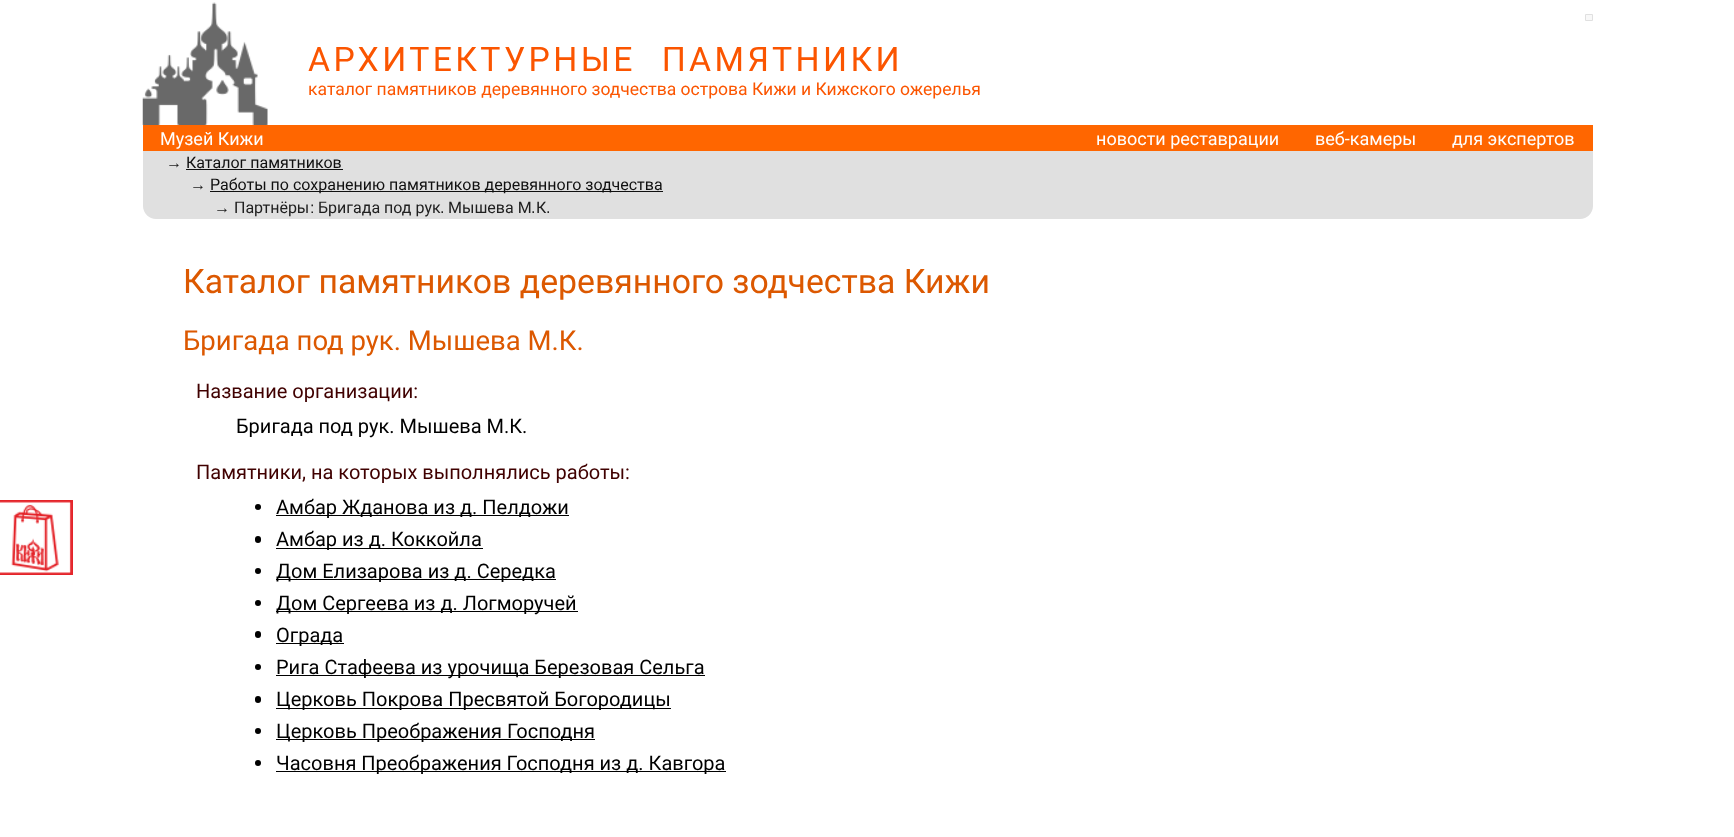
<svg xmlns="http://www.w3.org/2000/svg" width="1734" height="837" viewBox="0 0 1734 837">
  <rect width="100%" height="100%" fill="#fff"/>
  <image x="142" y="2" width="126" height="123" href="img/1.png"/>
  <path d="M1585.5 14.5h7v6H1585.5z" fill="#f8f8f8" stroke="#e0e0e0"/>
  <path d="M143 125h1450v26H143z" fill="#f60"/>
  <path d="M143 151H1593V206C1593 213 1587 219 1580 219H156C149 219 143 213 143 206Z" fill="#e0e0e0"/>
  <path d="M186 169h157v1H186z" fill="#101010"/>
  <path d="M210 191h453v1H210z" fill="#101010"/>
  <image x="0" y="500" width="73" height="75" href="img/2.png"/>
  <circle cx="258" cy="507" r="3" fill="#000"/>
  <path d="M276 515h293v1H276z" fill="#000"/>
  <rect x="255" y="536" width="6" height="7" rx="3" fill="#000"/>
  <path d="M276 548h207v1H276z" fill="#000"/>
  <circle cx="258" cy="571" r="3" fill="#000"/>
  <path d="M276 579h280v1H276z" fill="#000"/>
  <circle cx="258" cy="603" r="3" fill="#000"/>
  <path d="M276 611h302v1H276z" fill="#000"/>
  <rect x="255" y="631" width="6" height="7" rx="3" fill="#000"/>
  <path d="M276 643h68v1H276z" fill="#000"/>
  <circle cx="258" cy="667" r="3" fill="#000"/>
  <path d="M276 675h429v1H276z" fill="#000"/>
  <rect x="255" y="696" width="6" height="7" rx="3" fill="#000"/>
  <path d="M276 708h395v1H276z" fill="#000"/>
  <circle cx="258" cy="731" r="3" fill="#000"/>
  <path d="M276 739h319v1H276z" fill="#000"/>
  <circle cx="258" cy="763" r="3" fill="#000"/>
  <path d="M276 771h450v1H276z" fill="#000"/>
  <text x="308" y="71" word-spacing="14" font-family="Roboto" font-size="33.75" letter-spacing="3.4" fill="#fb5500">АРХИТЕКТУРНЫЕ ПАМЯТНИКИ</text>
  <text x="308" y="95" font-family="Roboto" font-size="17.55" fill="#fb5500">каталог памятников деревянного зодчества острова Кижи и Кижского ожерелья</text>
  <g font-family="Roboto" font-size="18" fill="#fff">
    <text x="160" y="145">Музей Кижи</text>
    <text x="1096" y="145">новости реставрации</text>
    <text x="1315" y="145">веб-камеры</text>
    <text x="1452" y="145">для экспертов</text>
  </g>
  <text x="166" y="168" font-family="Liberation Sans" font-size="16" fill="#202020">→</text>
  <text x="186" y="168" font-family="Roboto" font-size="16" fill="#101010">Каталог памятников</text>
  <text x="190" y="190" font-family="Liberation Sans" font-size="16" fill="#202020">→</text>
  <text x="210" y="190" font-family="Roboto" font-size="16" fill="#101010">Работы по сохранению памятников деревянного зодчества</text>
  <text x="214" y="213" font-family="Liberation Sans" font-size="16" fill="#202020">→</text>
  <text x="234" y="213" font-family="Roboto" font-size="16" fill="#202020">Партнёры</text>
  <text x="310" y="213" font-family="Liberation Sans" font-size="16" fill="#202020">:</text>
  <text x="318" y="213" font-family="Roboto" font-size="16" fill="#202020">Бригада под рук</text>
  <text x="440" y="213" font-family="Liberation Sans" font-size="16" fill="#202020">.</text>
  <text x="448" y="213" font-family="Roboto" font-size="16" fill="#202020">Мышева М</text>
  <text x="531" y="213" font-family="Liberation Sans" font-size="16" fill="#202020">.</text>
  <text x="536" y="213" font-family="Roboto" font-size="16" fill="#202020">К</text>
  <text x="546" y="213" font-family="Liberation Sans" font-size="16" fill="#202020">.</text>
  <text x="183" y="293" font-family="Roboto" font-size="33.75" fill="#dc5800">Каталог памятников деревянного зодчества Кижи</text>
  <text x="183" y="350" font-family="Roboto" font-size="27.5" fill="#dc5800">Бригада под рук. Мышева М.К.</text>
  <text x="196" y="398" font-family="Roboto" font-size="20" fill="#400000">Название организации:</text>
  <text x="236" y="433" font-family="Roboto" font-size="20" fill="#000">Бригада под рук. Мышева М.К.</text>
  <text x="196" y="479" font-family="Roboto" font-size="20" fill="#400000">Памятники, на которых выполнялись работы:</text>
  <g font-family="Roboto" font-size="20" fill="#000">
    <text x="276" y="514">Амбар Жданова из д. Пелдожи</text>
    <text x="276" y="546">Амбар из д. Коккойла</text>
    <text x="276" y="578">Дом Елизарова из д. Середка</text>
    <text x="276" y="610">Дом Сергеева из д. Логморучей</text>
    <text x="276" y="642">Ограда</text>
    <text x="276" y="674">Рига Стафеева из урочища Березовая Сельга</text>
    <text x="276" y="706">Церковь Покрова Пресвятой Богородицы</text>
    <text x="276" y="738">Церковь Преображения Господня</text>
    <text x="276" y="770">Часовня Преображения Господня из д. Кавгора</text>
  </g>
</svg>
